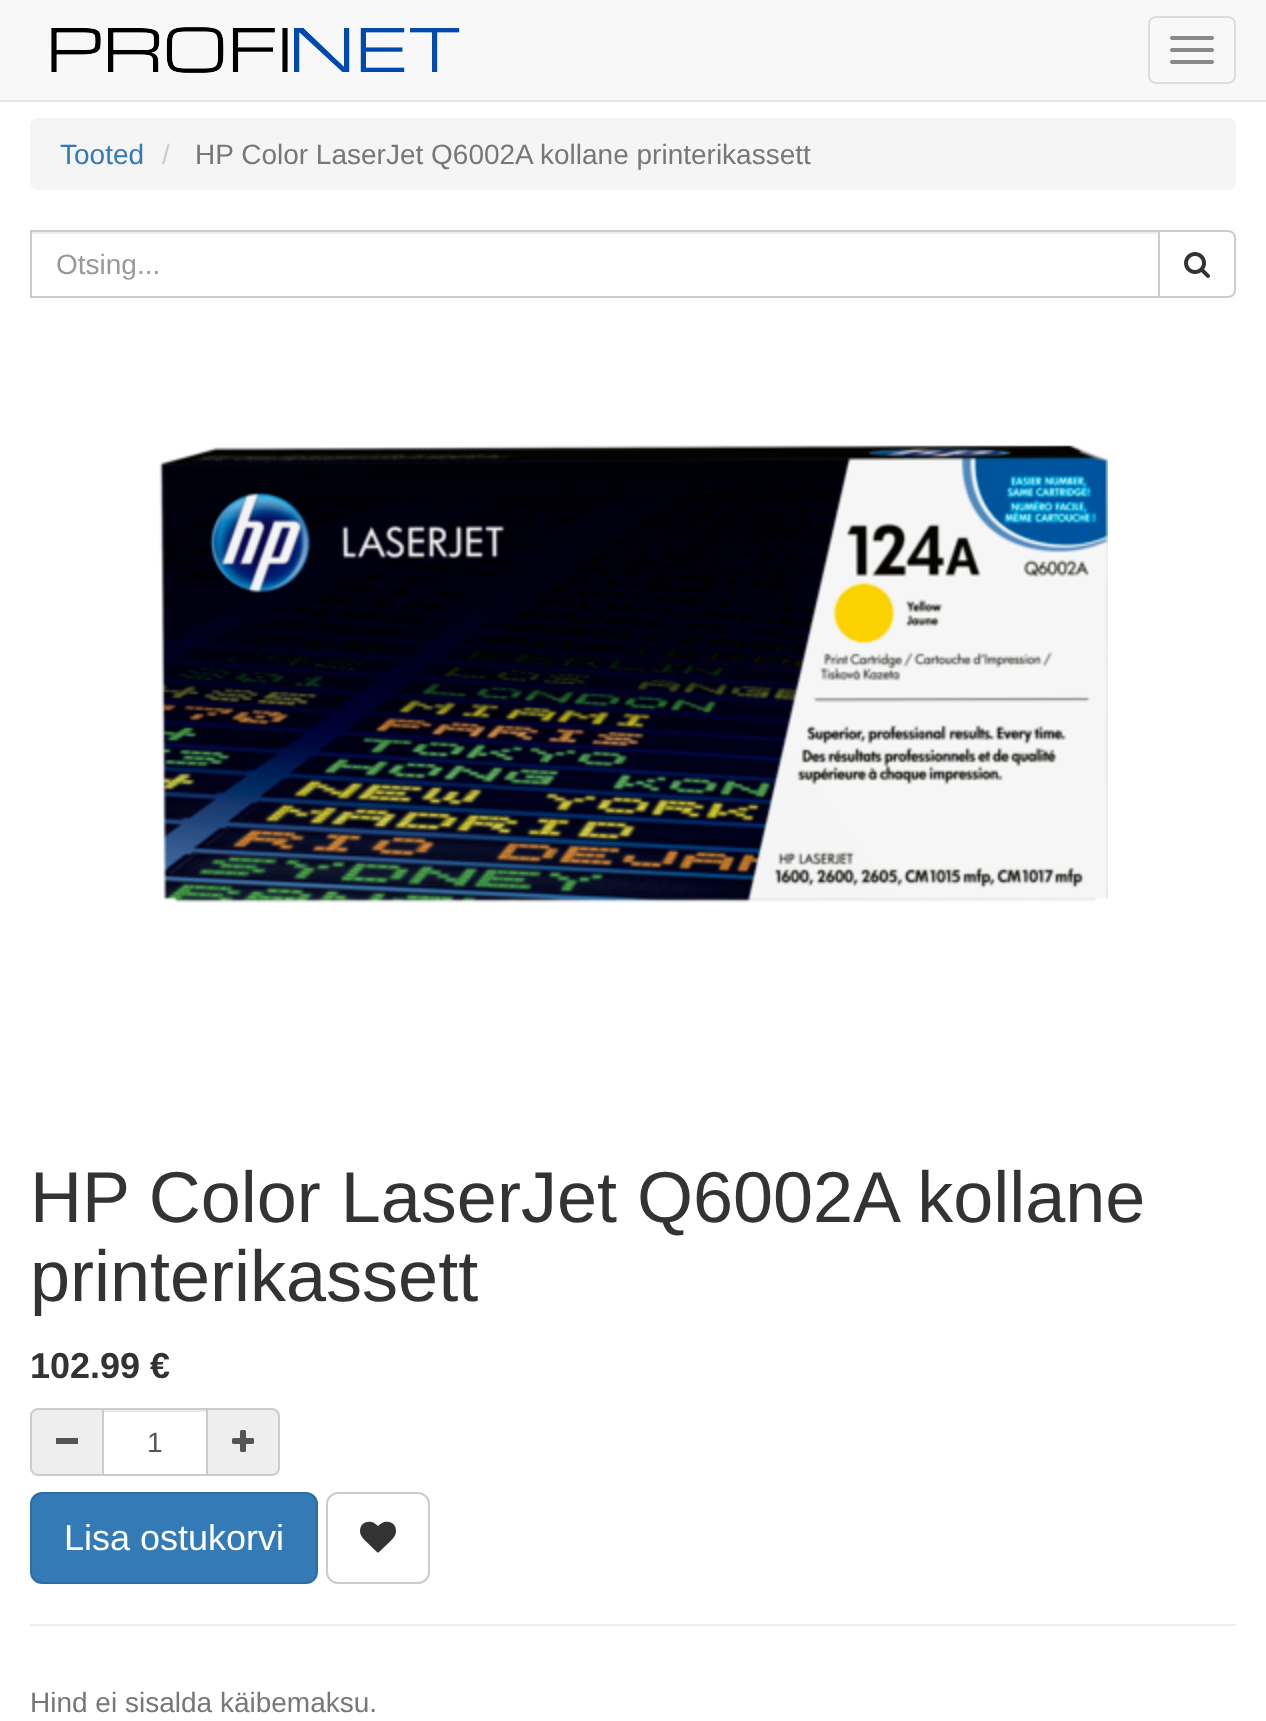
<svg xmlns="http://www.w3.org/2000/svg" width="1266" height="1721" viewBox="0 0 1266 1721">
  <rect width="100%" height="100%" fill="#fff"/>
  <path d="M0 0h1266v100H0z" fill="#f8f8f8"/>
  <path d="M0 100h1266v2H0z" fill="#e7e7e7"/>
  <image x="51" y="27" width="409" height="46" href="img/1.png"/>
  <rect x="1149" y="17" width="86" height="66" rx="7" fill="none" stroke="#ddd" stroke-width="2"/>
  <rect x="1170" y="36" width="44" height="4" rx="2" fill="#888"/>
  <rect x="1170" y="48" width="44" height="4" rx="2" fill="#888"/>
  <rect x="1170" y="60" width="44" height="4" rx="2" fill="#888"/>
  <rect x="30" y="118" width="1206" height="72" rx="8" fill="#f5f5f5"/>
  <path d="M32 232h1126v2H32z" fill="#ececec"/>
  <path d="M31 231h1128v66H31z" fill="none" stroke="#ccc" stroke-width="2"/>
  <path d="M1159 231H1228C1232 231 1235 234 1235 238V290C1235 294 1232 297 1228 297H1159Z" fill="#fff" stroke="#ccc" stroke-width="2"/>
  <image x="1184" y="252" width="26" height="26" href="img/2.png"/>
  <image x="159" y="445" width="949" height="458" href="img/3.png"/>
  <path d="M38 1408H102V1476H38C33.5 1476 30 1472.5 30 1468V1416C30 1411.5 33.5 1408 38 1408Z" fill="#eee"/>
  <path d="M38 1408H102V1476H38C34 1476 30 1472 30 1468V1416C30 1412 34 1408 38 1408ZM38 1410H102V1474H38C35 1474 32 1471 32 1468V1416C32 1413 35 1410 38 1410Z" fill="#ccc" fill-rule="evenodd"/>
  <path d="M56 1438h22v6H56z" fill="#555"/>
  <path d="M104 1410h102v2H104z" fill="#ececec"/>
  <path d="M103 1409h104v66H103z" fill="none" stroke="#ccc" stroke-width="2"/>
  <path d="M208 1408H272C276.5 1408 280 1411.5 280 1416V1468C280 1472.5 276.5 1476 272 1476H208Z" fill="#eee"/>
  <path d="M208 1408H272C276 1408 280 1412 280 1416V1468C280 1472 276 1476 272 1476H208ZM208 1410H272C275 1410 278 1413 278 1416V1468C278 1471 275 1474 272 1474H208Z" fill="#ccc" fill-rule="evenodd"/>
  <image x="232" y="1430" width="22" height="22" href="img/4.png"/>
  <rect x="31" y="1493" width="286" height="90" rx="11" fill="#337ab7" stroke="#2e6da4" stroke-width="2"/>
  <rect x="327" y="1493" width="102" height="90" rx="11" fill="none" stroke="#ccc" stroke-width="2"/>
  <image x="360" y="1521" width="36" height="32" href="img/5.png"/>
  <path d="M30 1624h1206v2H30z" fill="#eee"/>
  <text x="60" y="164" font-family="Liberation Sans" font-size="28" fill="#337ab7">Tooted</text>
  <text x="162" y="164" font-family="Liberation Sans" font-size="28" fill="#ccc">/</text>
  <text x="195" y="164" font-family="Liberation Sans" font-size="28" fill="#777">HP Color LaserJet Q6002A kollane printerikassett</text>
  <text x="56" y="274" font-family="Liberation Sans" font-size="28" fill="#999">Otsing...</text>
  <g font-family="Liberation Sans" font-size="72" fill="#333">
    <text x="30" y="1222">HP Color LaserJet Q6002A kollane</text>
    <text x="30" y="1301">printerikassett</text>
  </g>
  <text x="30" y="1378" font-family="Liberation Sans" font-size="36" font-weight="bold" fill="#333">102.99 €</text>
  <text x="147" y="1452" font-family="Liberation Sans" font-size="28" fill="#555">1</text>
  <text x="64" y="1550" font-family="Liberation Sans" font-size="36" fill="#fff">Lisa ostukorvi</text>
  <text x="30" y="1712" font-family="Liberation Sans" font-size="28" fill="#777">Hind ei sisalda käibemaksu.</text>
</svg>
